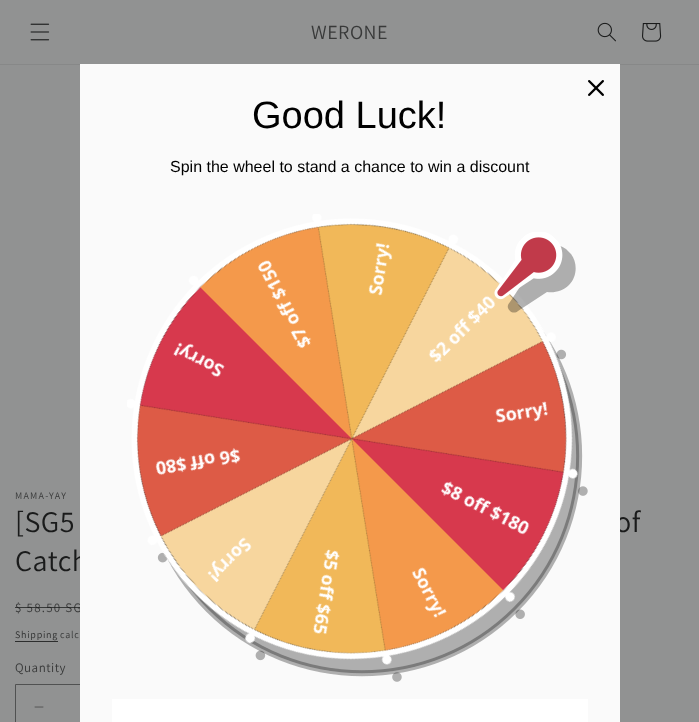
<svg xmlns="http://www.w3.org/2000/svg" width="699" height="722" viewBox="0 0 699 722">
  <rect width="100%" height="100%" fill="#919292"/>
  <path d="M0 64h699v1H0z" fill="#878888"/>
  <image x="30" y="23" width="20" height="18" href="img/1.png"/>
  <image x="597" y="22" width="19" height="20" href="img/2.png"/>
  <image x="642" y="23" width="20" height="19" href="img/3.png"/>
  <path d="M15 641h43v1H15z" fill="#2c2d2d"/>
  <image x="34" y="706" width="10" height="2" href="img/8.png"/>
  <path d="M15.5 684.5h141v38H15.5z" fill="none" stroke="#505151"/>
  <text x="311" y="39" font-family="Assistant" font-size="20" letter-spacing="0.5" fill="#383939">WERONE</text>
  <text x="15" y="499" font-family="Assistant" font-size="10" letter-spacing="1.25" fill="#383939">MAMA-YAY</text>
  <g font-family="Assistant" font-size="30" letter-spacing="0.5" fill="#1a1b1b">
    <text x="15" y="532">[SG5</text>
    <text x="615" y="532">of</text>
    <text x="15" y="571">Catch</text>
  </g>
  <text x="15" y="612" font-family="Assistant" font-size="13" letter-spacing="1.25" fill="#383939">$ 58.50 SG</text>
  <path d="M80 64h540v658H80z" fill="#fafafa"/>
  <image x="588" y="80" width="16" height="16" href="img/4.png"/>
  <image x="157" y="322" width="431" height="360" href="img/7.png"/>
  <image x="127" y="214" width="451" height="451" href="img/5.png"/>
  <path d="M569 285C563 291 555 293 547 292L518 311C516 313 512 313 510 311C507 308 507 305 510 302L529 273C527 266 529 259 534 253L537 250C545 243 557 243 566 249L571 254C578 263 577 277 569 285Z" fill="#0000004d"/>
  <image x="494" y="232" width="69" height="68" href="img/6.png"/>
  <path d="M112 699h476v23H112z" fill="#fff"/>
  <text x="170" y="172" font-family="Liberation Sans" font-size="16" fill="#000">Spin the wheel to stand a chance to win a discount</text>
  <text x="252" y="128" font-family="Liberation Sans" font-size="38" fill="#000">Good Luck!</text>
  <path d="M15 607h65v1H15z" fill="#1a1b1bbf"/>
  <text x="15" y="638" font-family="Assistant" font-size="10" letter-spacing="0.75" fill="#2c2d2d">Shipping</text>
  <text x="60" y="638" font-family="Assistant" font-size="10" letter-spacing="0.75" fill="#383939">calc</text>
  <text x="15" y="672" font-family="Assistant" font-size="13" letter-spacing="0.5" fill="#383939">Quantity</text>
</svg>
